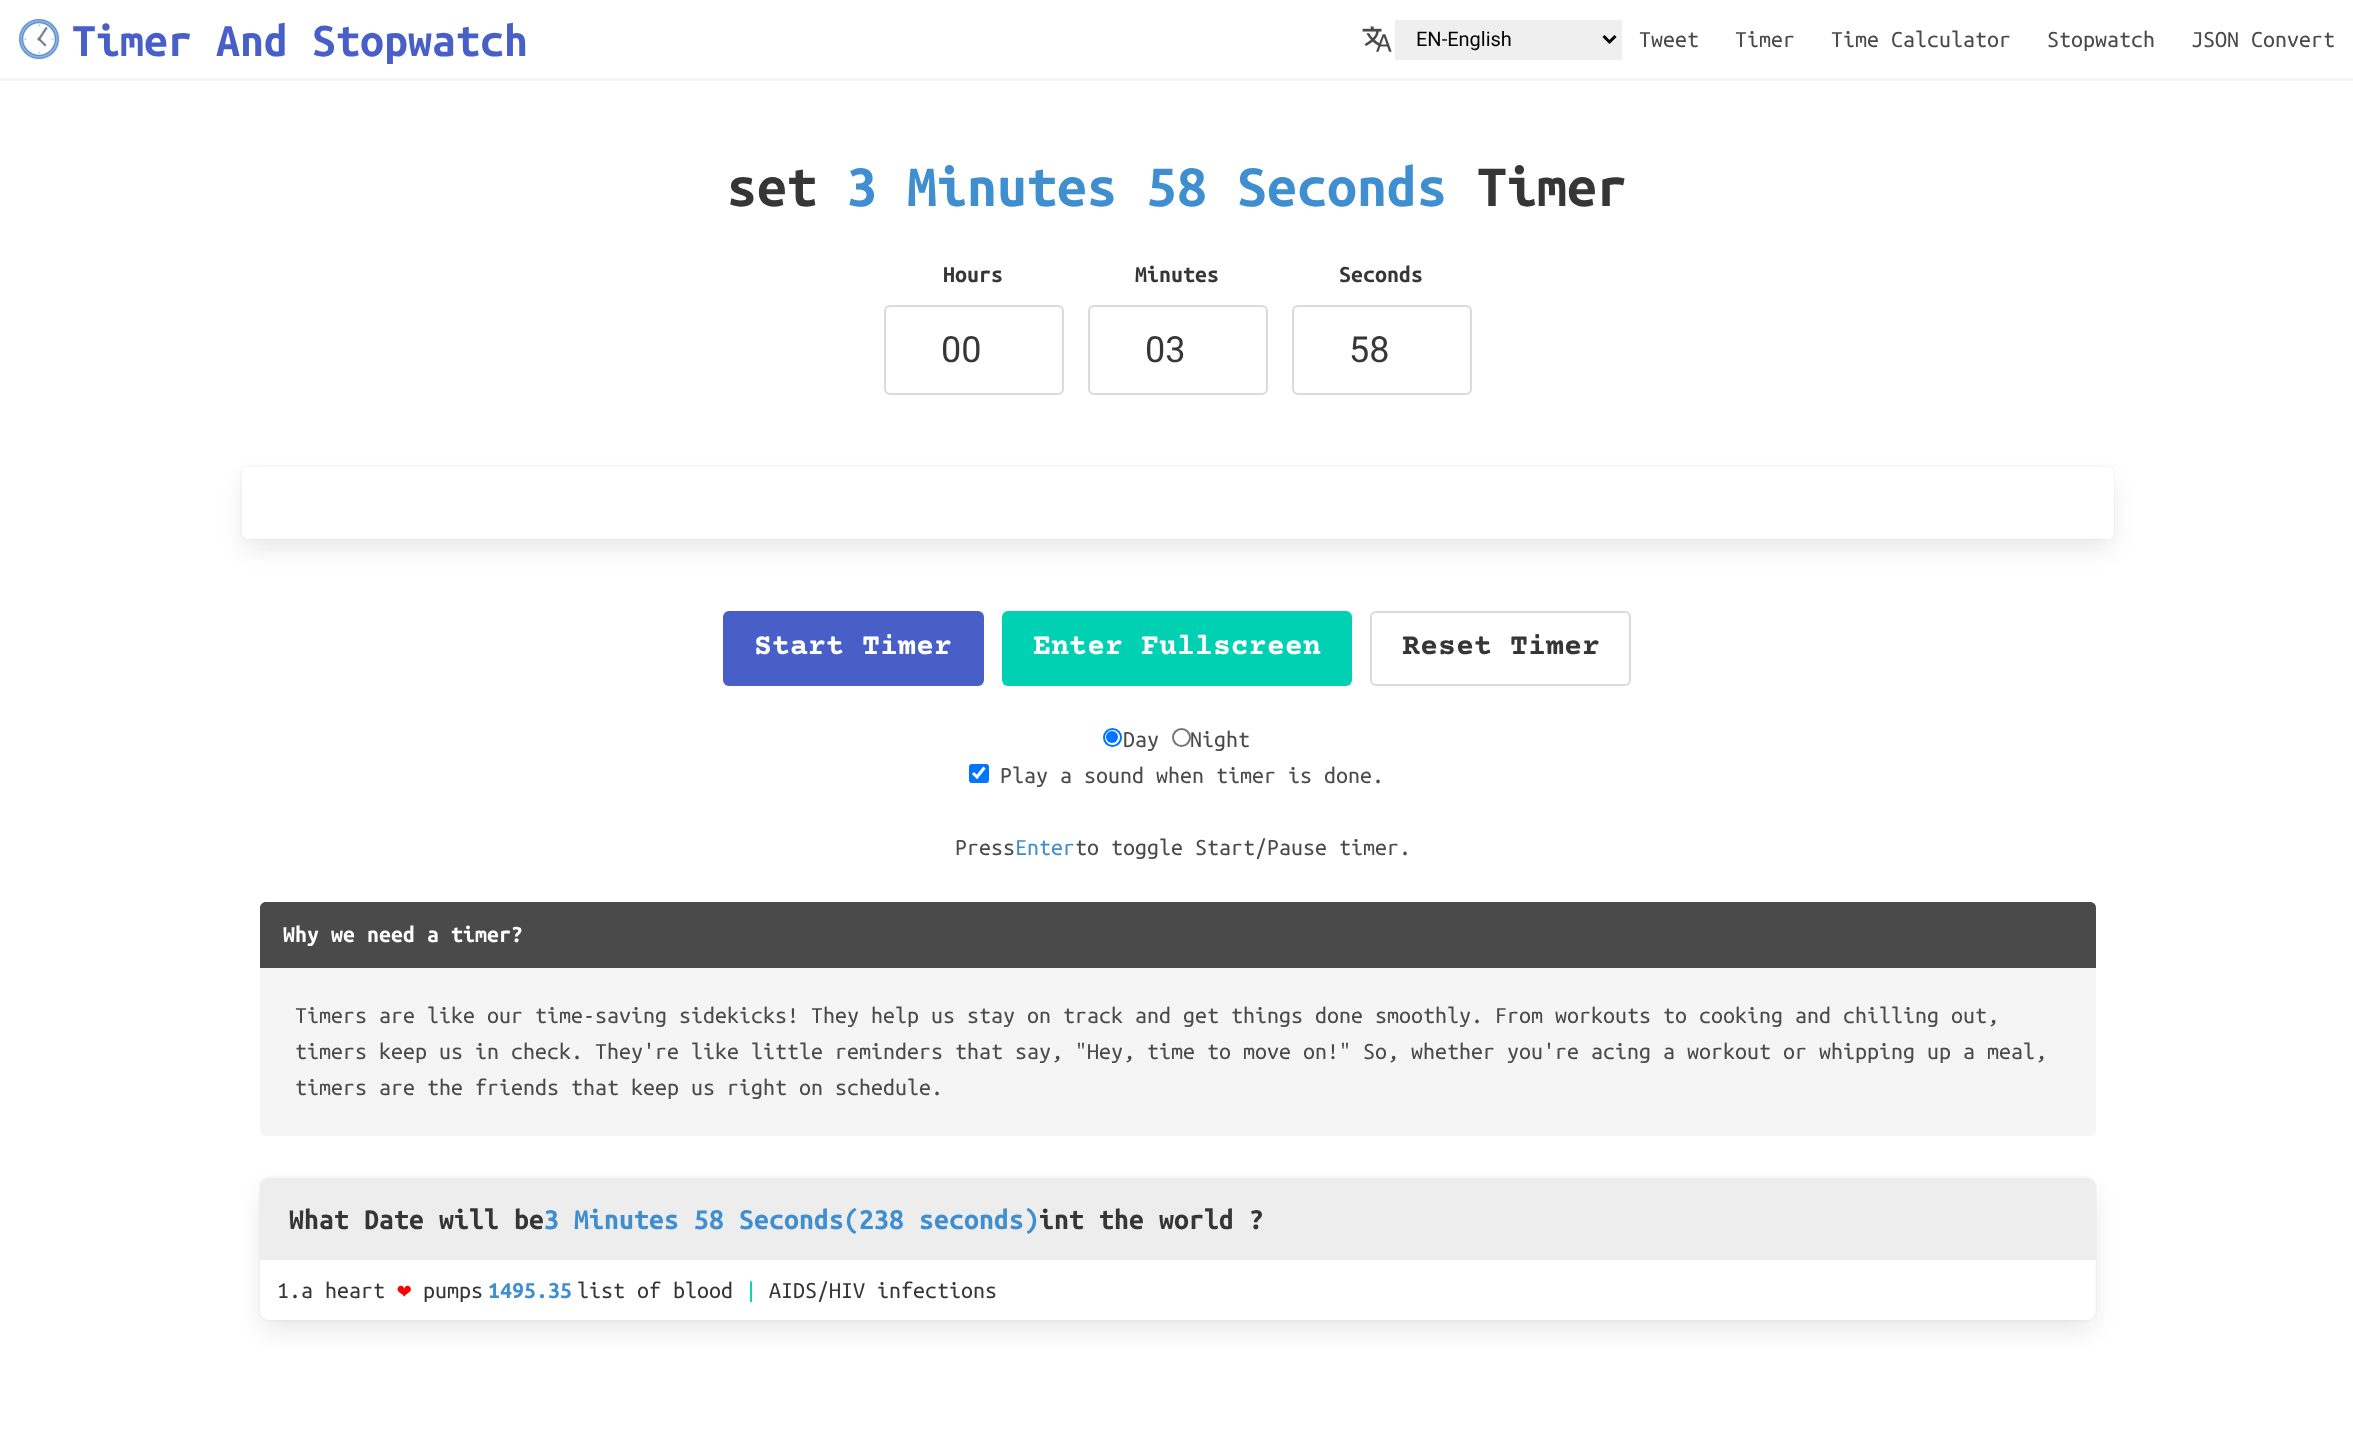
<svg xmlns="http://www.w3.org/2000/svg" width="2353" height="1437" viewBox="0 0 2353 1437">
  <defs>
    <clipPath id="clip1"><path d="M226 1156H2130V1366H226ZM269 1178H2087C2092 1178 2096 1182 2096 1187V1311C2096 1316 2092 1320 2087 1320H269C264 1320 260 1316 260 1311V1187C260 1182 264 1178 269 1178Z" clip-rule="evenodd"/></clipPath>
  </defs>
  <rect width="100%" height="100%" fill="#fff"/>
  <path d="M0 78h2353v3H0z" fill="#f5f5f5"/>
  <image x="18" y="18" width="42" height="42" href="img/1.png"/>
  <image x="1362" y="26" width="30" height="26" href="img/2.png"/>
  <path d="M1395 20h227v40H1395z" fill="#efefef"/>
  <path d="M1603.5 36L1609.5 42L1615.5 36" fill="none" stroke="#000" stroke-width="3"/>
  <rect x="885" y="306" width="178" height="88" rx="5" fill="none" stroke="#dbdbdb" stroke-width="2"/>
  <rect x="1089" y="306" width="178" height="88" rx="5" fill="none" stroke="#dbdbdb" stroke-width="2"/>
  <rect x="1293" y="306" width="178" height="88" rx="5" fill="none" stroke="#dbdbdb" stroke-width="2"/>
  <rect x="241" y="466" width="1873" height="73" rx="7" fill="none" stroke="#fafafa" stroke-width="2"/>
  <rect x="245" y="482" width="1866" height="66" rx="3" fill="#0a0a0a1a" filter="blur(12px)"/>
  <rect x="242" y="467" width="1872" height="72" rx="6" fill="#fff"/>
  <rect x="723" y="611" width="261" height="75" rx="6" fill="#485fc7"/>
  <rect x="1002" y="611" width="350" height="75" rx="6" fill="#00d1b2"/>
  <rect x="1371" y="612" width="259" height="73" rx="5" fill="none" stroke="#dbdbdb" stroke-width="2"/>
  <circle cx="1112.5" cy="737.5" r="8.5" fill="none" stroke="#0075ff" stroke-width="2"/>
  <circle cx="1112" cy="737" r="6" fill="#0075ff"/>
  <circle cx="1181.5" cy="737.5" r="8.5" fill="none" stroke="#767676" stroke-width="2"/>
  <rect x="969" y="764" width="20" height="19" rx="3" fill="#0075ff"/>
  <path d="M973 773L977 777L984.5 767.5" fill="none" stroke="#fff" stroke-width="3.1"/>
  <rect x="260" y="902" width="1836" height="234" rx="6" fill="#f5f5f5"/>
  <path d="M266 902H2090C2093.5 902 2096 904.5 2096 908V968H260V908C260 904.5 262.5 902 266 902Z" fill="#4a4a4a"/>
  <rect x="259" y="1177" width="1837" height="144" rx="10" fill="none" stroke="#fafafa" stroke-width="2"/>
  <g clip-path="url(#clip1)">
    <rect x="263" y="1193" width="1830" height="136" rx="6" fill="#0a0a0a1a" filter="blur(12px)"/>
  </g>
  <path d="M269 1178H2087C2092 1178 2096 1182 2096 1187V1260H260V1187C260 1182 264 1178 269 1178Z" fill="#ededed"/>
  <text x="72" y="56" font-family="Ubuntu Mono" font-size="48" font-weight="bold" fill="#485fc7">Timer And Stopwatch</text>
  <text x="1416" y="46" font-family="Roboto" font-size="20" fill="#000">EN-English</text>
  <g font-family="Ubuntu Mono" font-size="24" fill="#4a4a4a">
    <text x="1639" y="47">Tweet</text>
    <text x="1735" y="47">Timer</text>
    <text x="1831" y="47">Time Calculator</text>
    <text x="2047" y="47">Stopwatch</text>
    <text x="2191" y="47">JSON Convert</text>
  </g>
  <text x="727" y="206" font-family="Ubuntu Mono" font-size="60" font-weight="bold" fill="#363636">set</text>
  <text x="847" y="206" font-family="Ubuntu Mono" font-size="60" font-weight="bold" fill="#3e8ed0">3 Minutes 58 Seconds</text>
  <text x="1477" y="206" font-family="Ubuntu Mono" font-size="60" font-weight="bold" fill="#363636">Timer</text>
  <text x="943" y="282" font-family="Ubuntu Mono" font-size="24" font-weight="bold" fill="#363636">Hours</text>
  <text x="941" y="362" font-family="Roboto" font-size="36" fill="#363636">00</text>
  <text x="1135" y="282" font-family="Ubuntu Mono" font-size="24" font-weight="bold" fill="#363636">Minutes</text>
  <text x="1145" y="362" font-family="Roboto" font-size="36" fill="#363636">03</text>
  <text x="1339" y="282" font-family="Ubuntu Mono" font-size="24" font-weight="bold" fill="#363636">Seconds</text>
  <text x="1349" y="362" font-family="Roboto" font-size="36" fill="#363636">58</text>
  <g font-family="Courier Prime" font-size="30" font-weight="bold" fill="#fff">
    <text x="754" y="654">Start Timer</text>
    <text x="1033" y="654">Enter Fullscreen</text>
  </g>
  <text x="1402" y="654" font-family="Courier Prime" font-size="30" font-weight="bold" fill="#363636">Reset Timer</text>
  <g font-family="Ubuntu Mono" font-size="24" fill="#4a4a4a">
    <text x="1123" y="747">Day</text>
    <text x="1190" y="747">Night</text>
    <text x="1000" y="783">Play a sound when timer is done.</text>
    <text x="955" y="855">Press</text>
  </g>
  <text x="1015" y="855" font-family="Ubuntu Mono" font-size="24" fill="#3e8ed0">Enter</text>
  <text x="1075" y="855" font-family="Ubuntu Mono" font-size="24" fill="#4a4a4a">to toggle Start/Pause timer.</text>
  <text x="283" y="942" font-family="Ubuntu Mono" font-size="24" font-weight="bold" fill="#fff">Why we need a timer?</text>
  <g font-family="Ubuntu Mono" font-size="24" fill="#4a4a4a">
    <text x="295" y="1023">Timers are like our time-saving sidekicks! They help us stay on track and get things done smoothly. From workouts to cooking and chilling out,</text>
    <text x="295" y="1059">timers keep us in check. They're like little reminders that say, "Hey, time to move on!" So, whether you're acing a workout or whipping up a meal,</text>
    <text x="295" y="1095">timers are the friends that keep us right on schedule.</text>
  </g>
  <text x="289" y="1229" font-family="Ubuntu Mono" font-size="30" font-weight="bold" fill="#363636">What Date will be</text>
  <text x="544" y="1229" font-family="Ubuntu Mono" font-size="30" font-weight="bold" fill="#3e8ed0">3 Minutes 58 Seconds(238 seconds)</text>
  <text x="1039" y="1229" font-family="Ubuntu Mono" font-size="30" font-weight="bold" fill="#363636">int the world ?</text>
  <text x="277" y="1298" font-family="Ubuntu Mono" font-size="24" fill="#363636">1.a heart</text>
  <text x="397" y="1298" font-family="DejaVu Sans Mono" font-size="24" fill="#f00">❤</text>
  <text x="423" y="1298" font-family="Ubuntu Mono" font-size="24" fill="#363636">pumps</text>
  <text x="488" y="1298" font-family="Ubuntu Mono" font-size="24" font-weight="bold" fill="#3e8ed0">1495.35</text>
  <text x="577" y="1298" font-family="Ubuntu Mono" font-size="24" fill="#363636">list of blood</text>
  <text x="745" y="1298" font-family="Ubuntu Mono" font-size="24" fill="#00d1b2">|</text>
  <text x="769" y="1298" font-family="Ubuntu Mono" font-size="24" fill="#363636">AIDS/HIV infections</text>
</svg>
